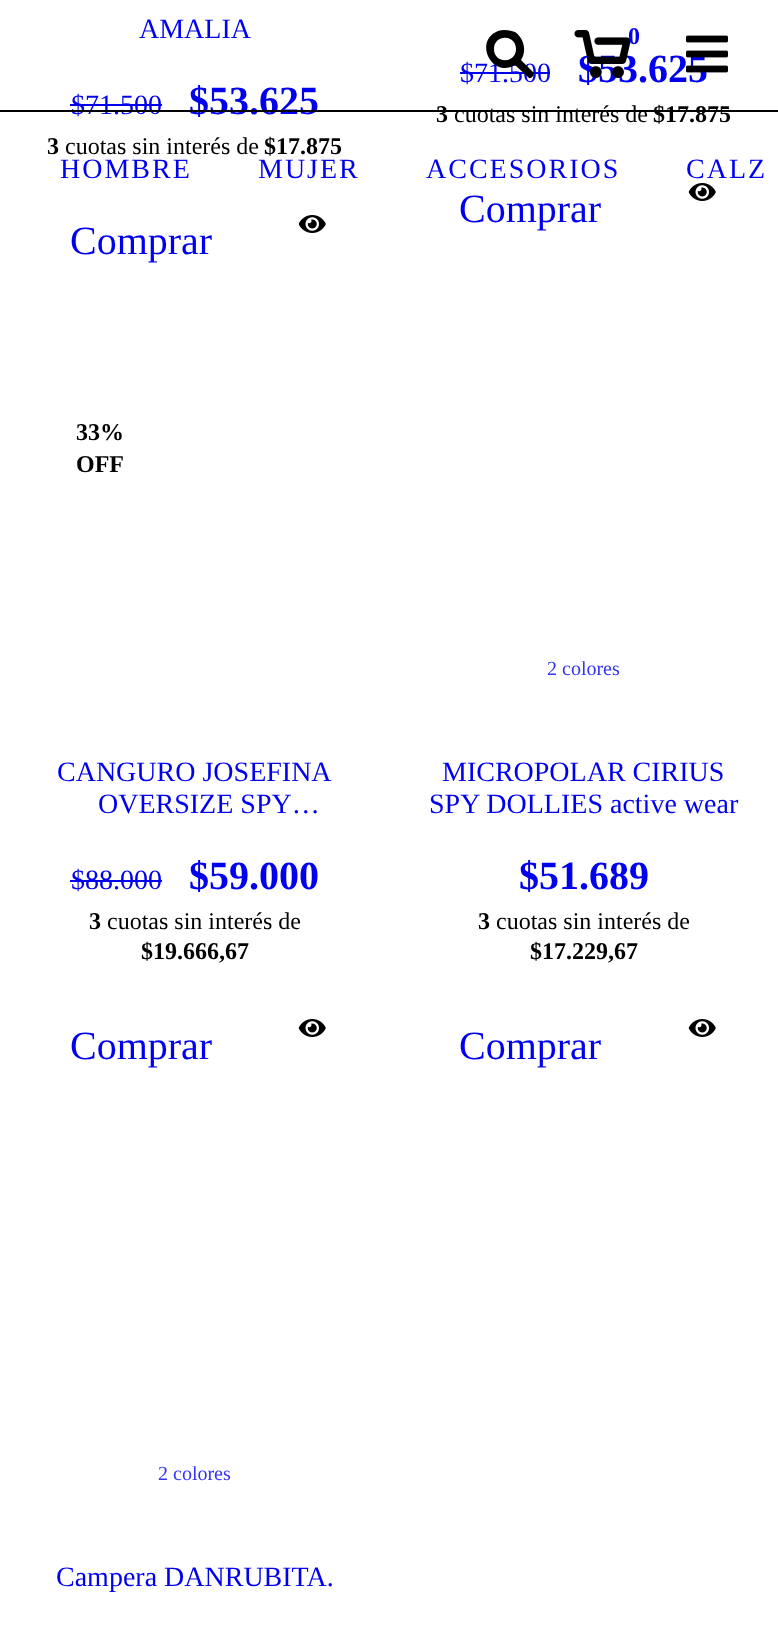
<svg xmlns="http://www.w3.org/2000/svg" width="778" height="1625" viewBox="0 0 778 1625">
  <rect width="100%" height="100%" fill="#fff"/>
  <path d="M70 104h92v2H70z" fill="#00e"/>
  <image x="298" y="215" width="28" height="18" href="img/1.png"/>
  <path d="M460 72h90v2H460z" fill="#00e"/>
  <image x="688" y="183" width="28" height="18" href="img/1.png"/>
  <path d="M70 880h92v2H70z" fill="#00e"/>
  <image x="298" y="1019" width="28" height="18" href="img/1.png"/>
  <image x="688" y="1019" width="28" height="18" href="img/1.png"/>
  <g font-family="Liberation Serif" font-size="28" fill="#00e">
    <text x="139" y="38">AMALIA</text>
    <text x="71" y="114">$71.500</text>
  </g>
  <text x="189" y="114" font-family="Liberation Serif" font-size="40" font-weight="bold" fill="#00e">$53.625</text>
  <text x="47" y="154" font-family="Liberation Serif" font-size="24" font-weight="bold" fill="#000">3</text>
  <text x="65" y="154" font-family="Liberation Serif" font-size="24" fill="#000">cuotas sin interés de</text>
  <text x="264" y="154" font-family="Liberation Serif" font-size="24" font-weight="bold" fill="#000">$17.875</text>
  <text x="70" y="254" font-family="Liberation Serif" font-size="40" fill="#00e">Comprar</text>
  <text x="460" y="82" font-family="Liberation Serif" font-size="28" fill="#00e">$71.500</text>
  <text x="578" y="82" font-family="Liberation Serif" font-size="40" font-weight="bold" fill="#00e">$53.625</text>
  <text x="436" y="122" font-family="Liberation Serif" font-size="24" font-weight="bold" fill="#000">3</text>
  <text x="454" y="122" font-family="Liberation Serif" font-size="24" fill="#000">cuotas sin interés de</text>
  <text x="653" y="122" font-family="Liberation Serif" font-size="24" font-weight="bold" fill="#000">$17.875</text>
  <text x="459" y="222" font-family="Liberation Serif" font-size="40" fill="#00e">Comprar</text>
  <g font-family="Liberation Serif" font-size="24" font-weight="bold" fill="#000">
    <text x="76" y="440">33%</text>
    <text x="76" y="472">OFF</text>
  </g>
  <g font-family="Liberation Serif" font-size="28" fill="#00e">
    <text x="57" y="781">CANGURO JOSEFINA</text>
    <text x="98" y="813">OVERSIZE SPY…</text>
    <text x="71" y="889">$88.000</text>
  </g>
  <text x="189" y="889" font-family="Liberation Serif" font-size="40" font-weight="bold" fill="#00e">$59.000</text>
  <text x="89" y="929" font-family="Liberation Serif" font-size="24" font-weight="bold" fill="#000">3</text>
  <text x="107" y="929" font-family="Liberation Serif" font-size="24" fill="#000">cuotas sin interés de</text>
  <text x="141" y="959" font-family="Liberation Serif" font-size="24" font-weight="bold" fill="#000">$19.666,67</text>
  <text x="70" y="1059" font-family="Liberation Serif" font-size="40" fill="#00e">Comprar</text>
  <text x="547" y="675" font-family="Liberation Serif" font-size="20" fill="#3333f1">2 colores</text>
  <g font-family="Liberation Serif" font-size="28" fill="#00e">
    <text x="442" y="781">MICROPOLAR CIRIUS</text>
    <text x="429" y="813">SPY DOLLIES active wear</text>
  </g>
  <text x="519" y="889" font-family="Liberation Serif" font-size="40" font-weight="bold" fill="#00e">$51.689</text>
  <text x="478" y="929" font-family="Liberation Serif" font-size="24" font-weight="bold" fill="#000">3</text>
  <text x="496" y="929" font-family="Liberation Serif" font-size="24" fill="#000">cuotas sin interés de</text>
  <text x="530" y="959" font-family="Liberation Serif" font-size="24" font-weight="bold" fill="#000">$17.229,67</text>
  <text x="459" y="1059" font-family="Liberation Serif" font-size="40" fill="#00e">Comprar</text>
  <text x="158" y="1480" font-family="Liberation Serif" font-size="20" fill="#3333f1">2 colores</text>
  <text x="56" y="1586" font-family="Liberation Serif" font-size="28" fill="#00e">Campera DANRUBITA.</text>
  <path d="M533 72L521 60C527 51 524 38 515 32C510 30 503 29 498 31C473 41 492 79 515 65L529 78C532 79 535 74 533 72ZM494 49C494 34 516 34 516 49C516 64 494 64 494 49Z" fill="#000"/>
  <image x="574" y="30" width="57" height="48" href="img/2.png"/>
  <text x="628" y="44" font-family="Liberation Serif" font-size="24" font-weight="bold" fill="#00e">0</text>
  <image x="686" y="35" width="42" height="38" href="img/3.png"/>
  <path d="M0 110h778v2H0z" fill="#000"/>
  <g font-family="Liberation Serif" font-size="28" letter-spacing="2" fill="#00e">
    <text x="60" y="178">HOMBRE</text>
    <text x="258" y="178">MUJER</text>
    <text x="426" y="178">ACCESORIOS</text>
    <text x="686" y="178">CALZ</text>
  </g>
</svg>
